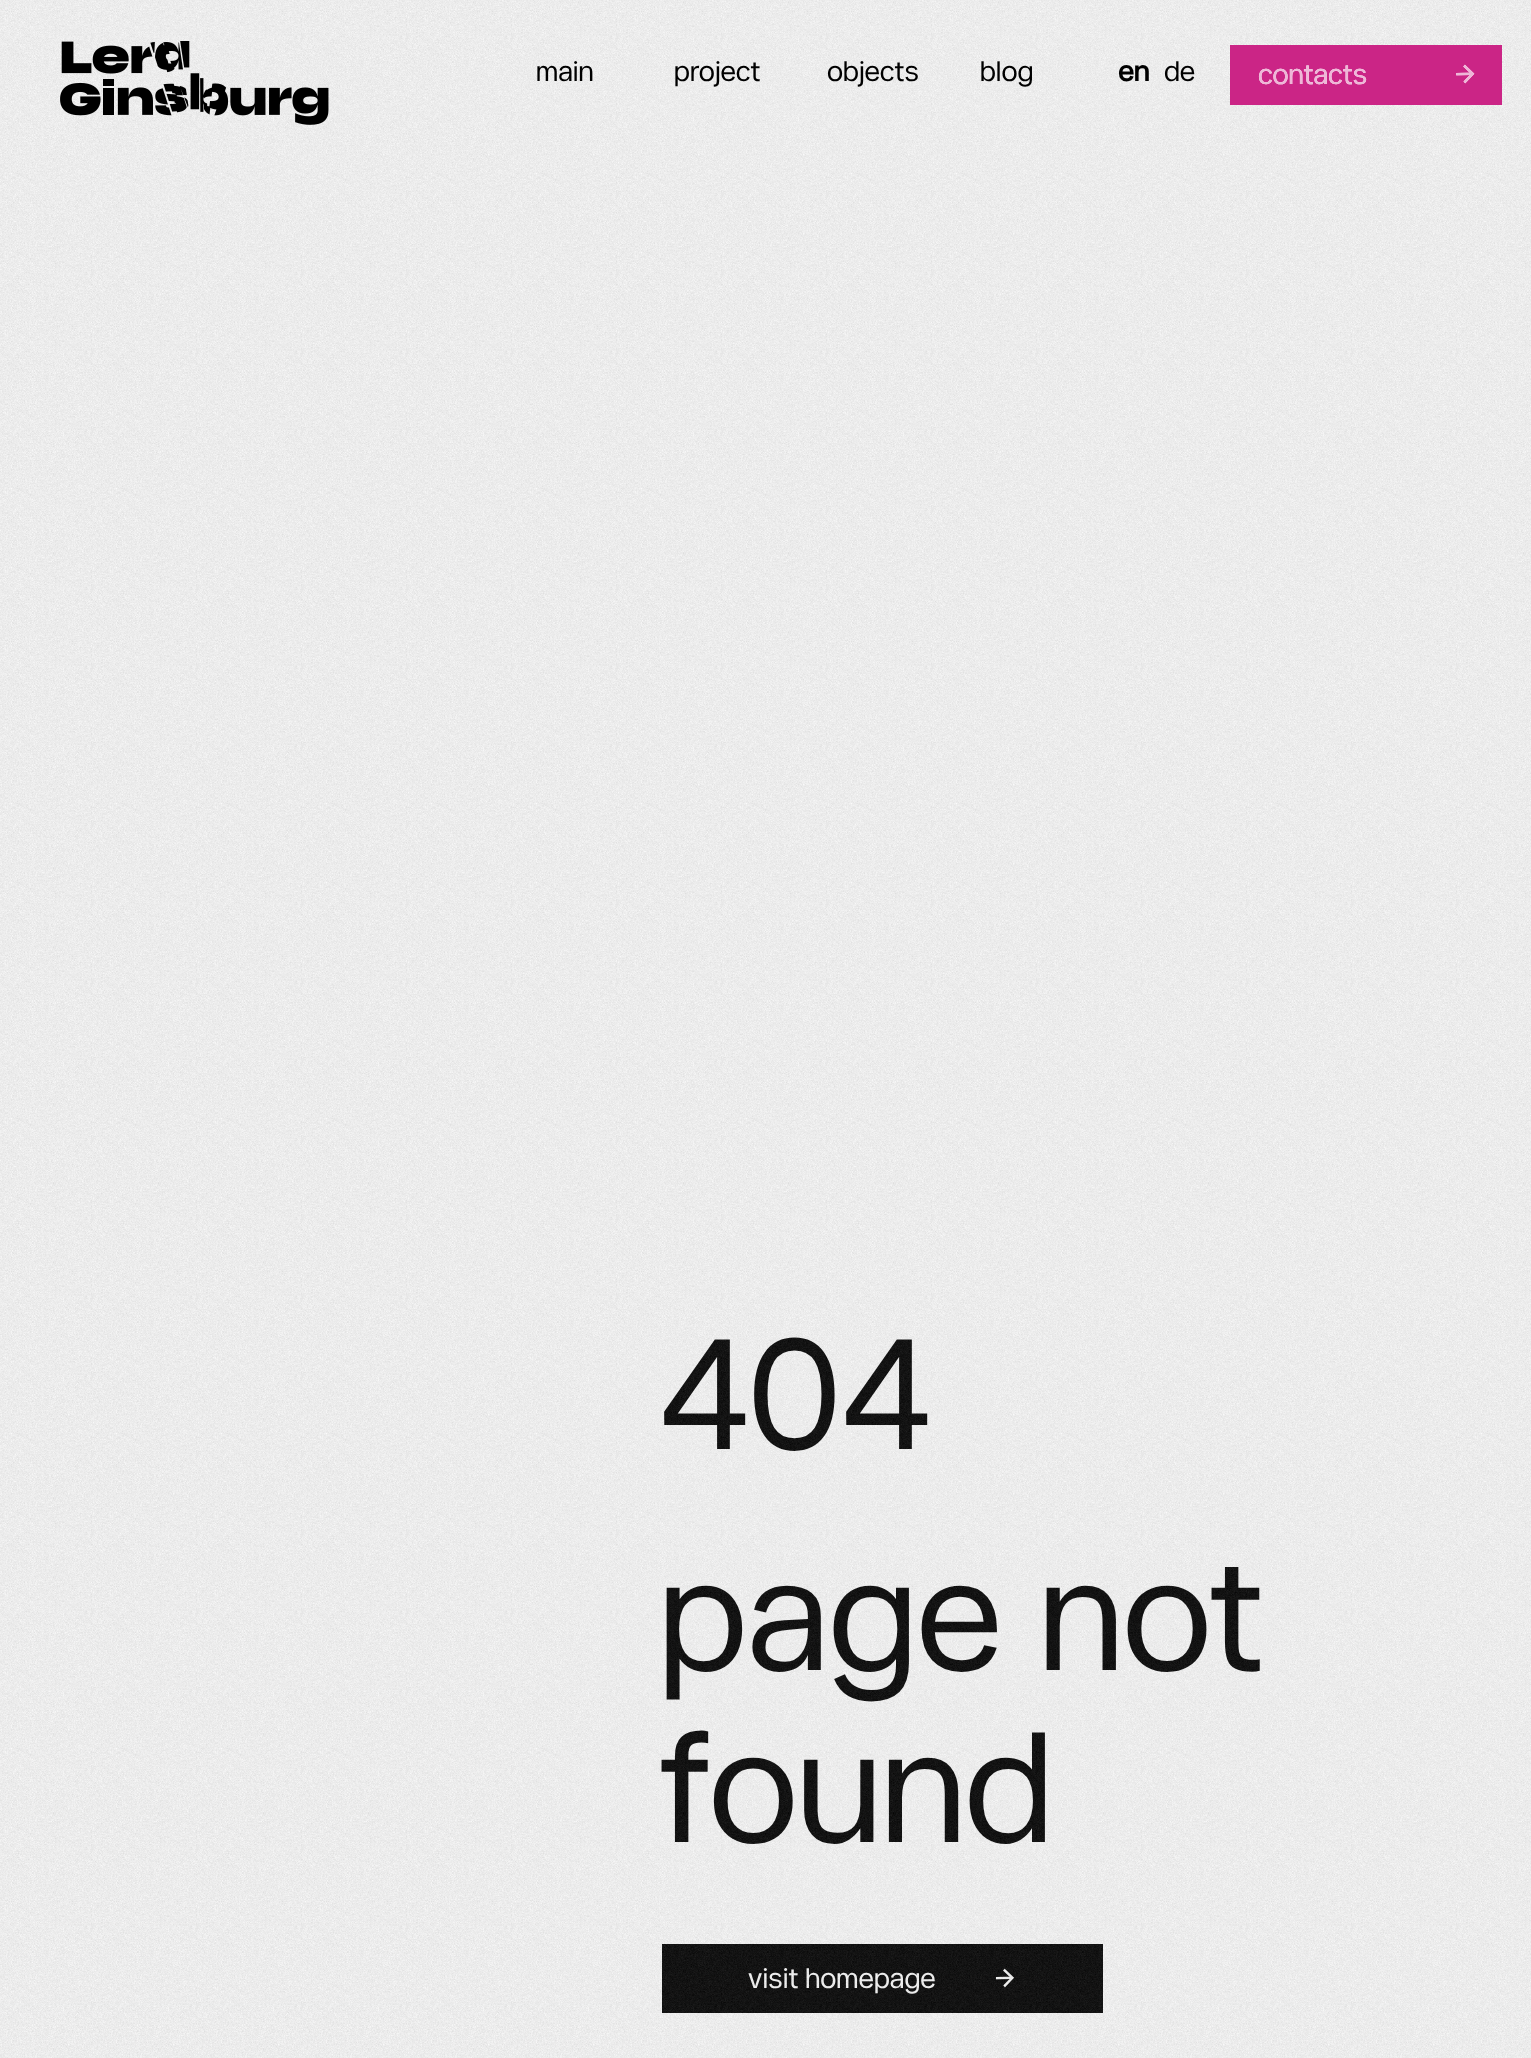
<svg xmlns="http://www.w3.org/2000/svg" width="1531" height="2058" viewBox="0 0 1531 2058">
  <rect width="100%" height="100%" fill="#fff"/>
  <path d="M662 1944h441v69H662z" fill="#000"/>
  <g font-family="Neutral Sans" font-size="150" fill="#000">
    <text x="659" y="1449">404</text>
    <text x="659" y="1670">page not</text>
    <text x="659" y="1842">found</text>
  </g>
  <text x="748" y="1988" font-family="Neutral Sans" font-size="27" fill="#fff">visit homepage　　→</text>
  <image x="0" y="0" width="1531" height="2058" href="img/1.png"/>
  <path d="M1230 45h272v60H1230z" fill="#cb2586"/>
  <text x="1258" y="84" font-family="Neutral Sans" font-size="27" fill="#fff">contacts　　　→</text>
  <text x="1258" y="84" font-family="Neutral Sans" font-size="27" fill="#eeb6d7">contacts　　　→</text>
  <text x="1164" y="81" font-family="Neutral Sans" font-size="27" fill="#000">de</text>
  <text x="1118" y="81" font-family="Neutral Sans" font-size="27" font-weight="bold" fill="#000">en</text>
  <image x="60" y="41" width="269" height="84" href="img/2.png"/>
  <g font-family="Neutral Sans" font-size="27" fill="#000">
    <text x="980" y="81">blog</text>
    <text x="827" y="81">objects</text>
    <text x="674" y="81">project</text>
    <text x="536" y="81">main</text>
  </g>
</svg>
